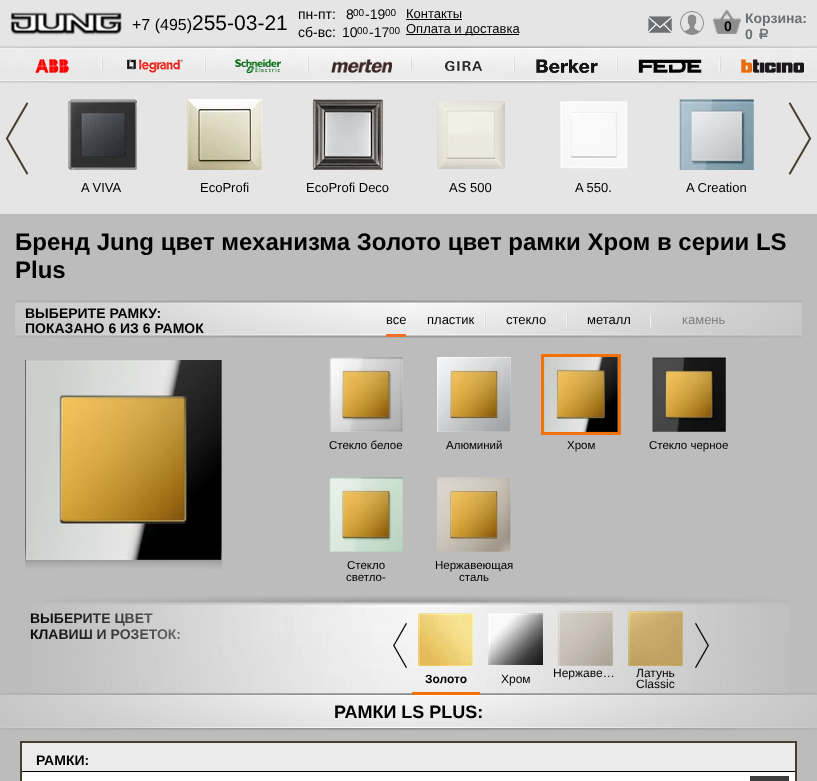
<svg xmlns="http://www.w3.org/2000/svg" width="817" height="781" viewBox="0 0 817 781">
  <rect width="100%" height="100%" fill="#bcbcbc"/>
  <path d="M0 0h817v214H0z" fill="#e5e5e5"/>
  <image x="10" y="12" width="112" height="23" href="img/1.png"/>
  <path d="M406 19h56v1H406z" fill="#000"/>
  <path d="M406 34h113v1H406z" fill="#000"/>
  <image x="648" y="16" width="24" height="17" href="img/2.png"/>
  <image x="680" y="11" width="24" height="24" href="img/3.png"/>
  <image x="713" y="10" width="28" height="24" href="img/4.png"/>
  <image x="0" y="45" width="817" height="39" href="img/5.png"/>
  <image x="35" y="59" width="34" height="14" href="img/6.png"/>
  <image x="101" y="56" width="2" height="18" href="img/7.png"/>
  <image x="127" y="59" width="56" height="14" href="img/8.png"/>
  <image x="204" y="56" width="2" height="18" href="img/9.png"/>
  <image x="235" y="59" width="46" height="14" href="img/10.png"/>
  <image x="307" y="56" width="2" height="18" href="img/11.png"/>
  <image x="331" y="59" width="61" height="14" href="img/12.png"/>
  <image x="410" y="55" width="2" height="19" href="img/13.png"/>
  <image x="445" y="61" width="37" height="10" href="img/14.png"/>
  <image x="513" y="56" width="2" height="18" href="img/15.png"/>
  <image x="536" y="59" width="62" height="14" href="img/16.png"/>
  <image x="616" y="56" width="2" height="18" href="img/17.png"/>
  <image x="638" y="59" width="64" height="14" href="img/18.png"/>
  <image x="719" y="56" width="2" height="17" href="img/19.png"/>
  <image x="741" y="59" width="63" height="14" href="img/20.png"/>
  <image x="5" y="102" width="24" height="73" href="img/21.png"/>
  <image x="788" y="102" width="24" height="73" href="img/22.png"/>
  <image x="68" y="99" width="69" height="71" href="img/23.png"/>
  <image x="187" y="99" width="75" height="71" href="img/24.png"/>
  <image x="312" y="99" width="71" height="71" href="img/25.png"/>
  <image x="437" y="101" width="68" height="68" href="img/26.png"/>
  <image x="560" y="101" width="68" height="68" href="img/27.png"/>
  <image x="679" y="99" width="75" height="71" href="img/28.png"/>
  <image x="15" y="300" width="787" height="38" href="img/29.png"/>
  <path d="M386 334h20v3H386z" fill="#f37022"/>
  <image x="484" y="312" width="2" height="17" href="img/30.png"/>
  <image x="566" y="312" width="2" height="18" href="img/31.png"/>
  <image x="650" y="311" width="1" height="20" href="img/32.png"/>
  <image x="329" y="357" width="74" height="75" href="img/33.png"/>
  <image x="437" y="357" width="74" height="75" href="img/34.png"/>
  <path d="M542.5 355.5h77v78H542.5z" fill="none" stroke="#f37207" stroke-width="3"/>
  <image x="544" y="357" width="74" height="75" href="img/35.png"/>
  <image x="652" y="357" width="74" height="75" href="img/36.png"/>
  <image x="329" y="477" width="74" height="75" href="img/37.png"/>
  <image x="437" y="477" width="74" height="75" href="img/38.png"/>
  <image x="25" y="360" width="197" height="209" href="img/39.png"/>
  <image x="25" y="360" width="197" height="200" href="img/40.png"/>
  <image x="0" y="692" width="817" height="39" href="img/48.png"/>
  <path d="M22 743h773v28H22z" fill="#ebebeb"/>
  <path d="M21 742h775v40H21z" fill="none" stroke="#493d2d" stroke-width="2"/>
  <path d="M22 771h773v1H22z" fill="#000"/>
  <path d="M22 772h773v9H22z" fill="#fff"/>
  <path d="M750 776h39v5H750z" fill="#3e3e3e"/>
  <text x="132" y="30" font-family="Liberation Sans" font-size="16" fill="#000">+7 (495)</text>
  <text x="192" y="30" font-family="Liberation Sans" font-size="21" fill="#000">255-03-21</text>
  <g font-family="Liberation Sans" font-size="14" fill="#000">
    <text x="298" y="19">пн-пт:</text>
    <text x="346" y="19">8</text>
  </g>
  <text x="353" y="16" font-family="Liberation Sans" font-size="10" fill="#000">00</text>
  <text x="365" y="19" font-family="Liberation Sans" font-size="14" fill="#000">-19</text>
  <text x="385" y="16" font-family="Liberation Sans" font-size="10" fill="#000">00</text>
  <g font-family="Liberation Sans" font-size="14" fill="#000">
    <text x="298" y="37">сб-вс:</text>
    <text x="342" y="37">10</text>
  </g>
  <text x="357" y="34" font-family="Liberation Sans" font-size="10" fill="#000">00</text>
  <text x="369" y="37" font-family="Liberation Sans" font-size="14" fill="#000">-17</text>
  <text x="389" y="34" font-family="Liberation Sans" font-size="10" fill="#000">00</text>
  <g font-family="Liberation Sans" font-size="13" fill="#000">
    <text x="406" y="18">Контакты</text>
    <text x="406" y="33">Оплата и доставка</text>
  </g>
  <text x="724" y="31" font-family="Liberation Sans" font-size="14" font-weight="bold" fill="#000">0</text>
  <g font-family="Liberation Sans" font-size="14" font-weight="bold" fill="#6c7072">
    <text x="745" y="23">Корзина:</text>
    <text x="745" y="39">0</text>
  </g>
  <text x="757" y="39" font-family="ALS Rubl" font-size="14" font-weight="bold" fill="#6c7072">a</text>
  <g font-family="Liberation Sans" font-size="13" fill="#000">
    <text x="81" y="192">A VIVA</text>
    <text x="200" y="192">EcoProfi</text>
    <text x="306" y="192">EcoProfi Deco</text>
    <text x="449" y="192">AS 500</text>
    <text x="575" y="192">A 550.</text>
    <text x="686" y="192">A Creation</text>
  </g>
  <g font-family="Liberation Sans" font-size="24" font-weight="bold" fill="#000">
    <text x="15" y="250">Бренд Jung цвет механизма Золото цвет рамки Хром в серии LS</text>
    <text x="15" y="278">Plus</text>
  </g>
  <g font-family="Liberation Sans" font-size="14" font-weight="bold" fill="#000">
    <text x="25" y="318">ВЫБЕРИТЕ РАМКУ:</text>
    <text x="25" y="333">ПОКАЗАНО 6 ИЗ 6 РАМОК</text>
  </g>
  <g font-family="Liberation Sans" font-size="13" fill="#000">
    <text x="386" y="324">все</text>
    <text x="427" y="324">пластик</text>
    <text x="506" y="324">стекло</text>
    <text x="587" y="324">металл</text>
  </g>
  <text x="682" y="324" font-family="Liberation Sans" font-size="13" fill="#807f7f">камень</text>
  <g font-family="Liberation Sans" font-size="11.5" fill="#000">
    <text x="329" y="449">Стекло белое</text>
    <text x="446" y="449">Алюминий</text>
    <text x="567" y="449">Хром</text>
    <text x="649" y="449">Стекло черное</text>
    <text x="347" y="569">Стекло</text>
    <text x="346" y="581">светло-</text>
    <text x="435" y="569">Нержавеющая</text>
    <text x="459" y="581">сталь</text>
  </g>
  <g font-family="Liberation Sans" font-size="14" font-weight="bold" fill="#000">
    <text x="30" y="623">ВЫБЕРИТЕ ЦВЕТ</text>
    <text x="30" y="639">КЛАВИШ И РОЗЕТОК:</text>
  </g>
  <image x="31" y="596" width="758" height="97" href="img/41.png"/>
  <image x="393" y="623" width="14" height="45" href="img/42.png"/>
  <image x="695" y="623" width="14" height="45" href="img/43.png"/>
  <path d="M412 692h68v3H412z" fill="#f37207"/>
  <image x="418" y="613" width="55" height="53" href="img/44.png"/>
  <text x="425" y="683" font-family="Liberation Sans" font-size="12" font-weight="bold" fill="#000">Золото</text>
  <image x="488" y="613" width="55" height="52" href="img/45.png"/>
  <text x="501" y="683" font-family="Liberation Sans" font-size="12" fill="#000">Хром</text>
  <image x="558" y="611" width="55" height="55" href="img/46.png"/>
  <text x="553" y="677" font-family="Liberation Sans" font-size="12" fill="#000">Нержаве…</text>
  <image x="628" y="611" width="55" height="55" href="img/47.png"/>
  <g font-family="Liberation Sans" font-size="12" fill="#000">
    <text x="636" y="677">Латунь</text>
    <text x="636" y="688">Classic</text>
  </g>
  <text x="334" y="718" font-family="Liberation Sans" font-size="18" font-weight="bold" fill="#000">РАМКИ LS PLUS:</text>
  <text x="36" y="765" font-family="Liberation Sans" font-size="14" font-weight="bold" fill="#000">РАМКИ:</text>
</svg>
